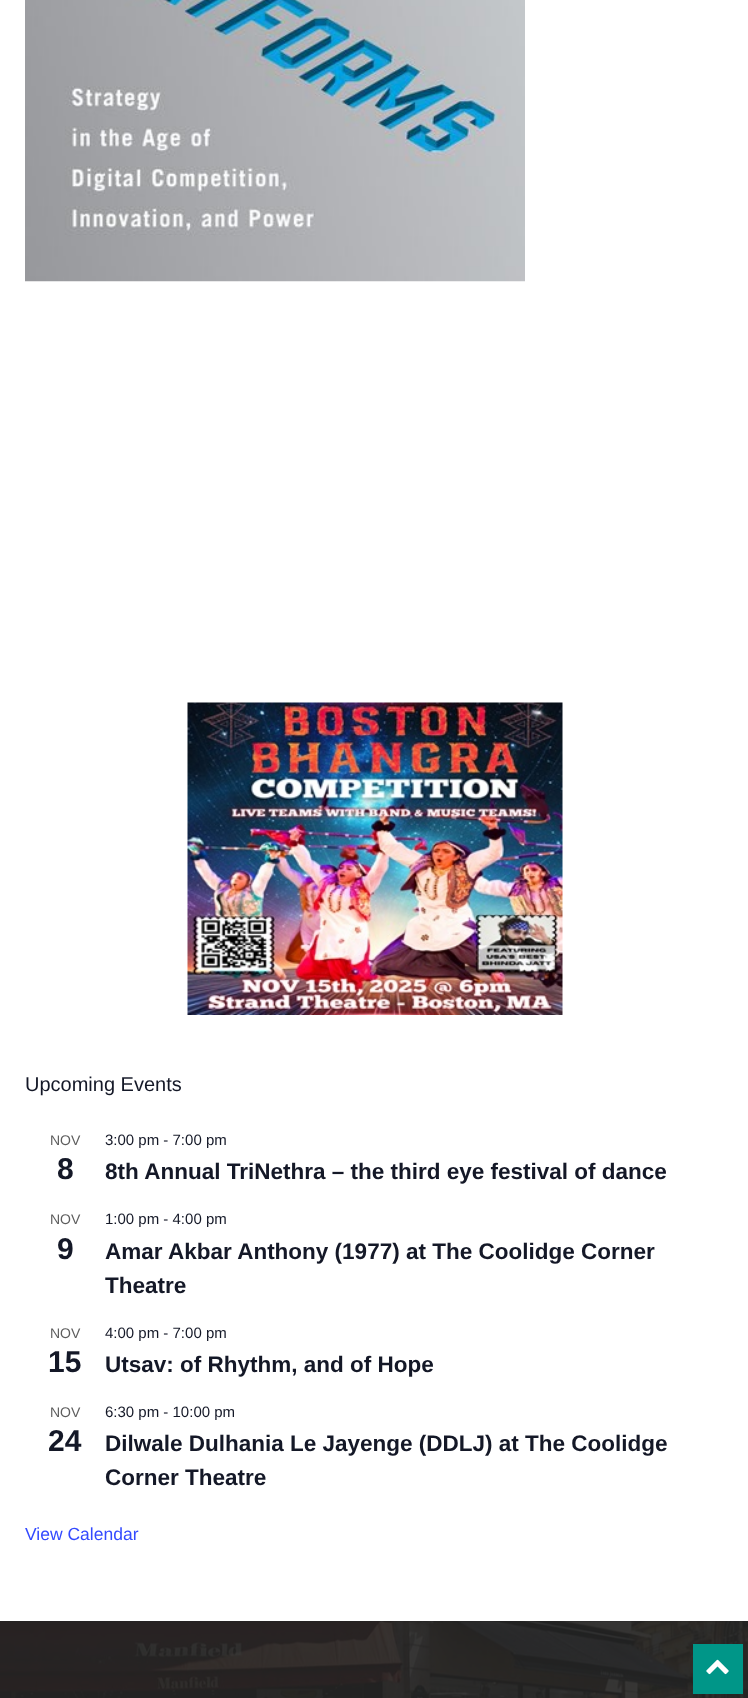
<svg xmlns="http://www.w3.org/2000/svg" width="748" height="1698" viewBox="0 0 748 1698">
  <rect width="100%" height="100%" fill="#fff"/>
  <image x="25" y="0" width="500" height="282" href="img/1.png"/>
  <image x="187" y="702" width="376" height="313" href="img/2.png"/>
  <path d="M0 1621h748v77H0z" fill="#222"/>
  <image x="0" y="1621" width="748" height="77" href="img/3.png"/>
  <path d="M693 1644h50v50H693z" fill="#009688"/>
  <image x="706" y="1659" width="23" height="16" href="img/4.png"/>
  <text x="25" y="1091" font-family="Liberation Sans" font-size="20" fill="#141827">Upcoming Events</text>
  <text x="50" y="1145" font-family="Liberation Sans" font-size="14" fill="#5d5d5d">NOV</text>
  <text x="57" y="1179" font-family="Liberation Sans" font-size="30" font-weight="bold" fill="#141827">8</text>
  <text x="105" y="1145" font-family="Liberation Sans" font-size="15" fill="#141827">3:00 pm - 7:00 pm</text>
  <text x="105" y="1179" font-family="Liberation Sans" font-size="22.5" font-weight="bold" fill="#141827">8th Annual TriNethra – the third eye festival of dance</text>
  <text x="50" y="1224" font-family="Liberation Sans" font-size="14" fill="#5d5d5d">NOV</text>
  <text x="57" y="1259" font-family="Liberation Sans" font-size="30" font-weight="bold" fill="#141827">9</text>
  <text x="105" y="1224" font-family="Liberation Sans" font-size="15" fill="#141827">1:00 pm - 4:00 pm</text>
  <g font-family="Liberation Sans" font-size="22.5" font-weight="bold" fill="#141827">
    <text x="105" y="1259">Amar Akbar Anthony (1977) at The Coolidge Corner</text>
    <text x="105" y="1293">Theatre</text>
  </g>
  <text x="50" y="1338" font-family="Liberation Sans" font-size="14" fill="#5d5d5d">NOV</text>
  <text x="48" y="1372" font-family="Liberation Sans" font-size="30" font-weight="bold" fill="#141827">15</text>
  <text x="105" y="1338" font-family="Liberation Sans" font-size="15" fill="#141827">4:00 pm - 7:00 pm</text>
  <text x="105" y="1372" font-family="Liberation Sans" font-size="22.5" font-weight="bold" fill="#141827">Utsav: of Rhythm, and of Hope</text>
  <text x="50" y="1417" font-family="Liberation Sans" font-size="14" fill="#5d5d5d">NOV</text>
  <text x="48" y="1451" font-family="Liberation Sans" font-size="30" font-weight="bold" fill="#141827">24</text>
  <text x="105" y="1417" font-family="Liberation Sans" font-size="15" fill="#141827">6:30 pm - 10:00 pm</text>
  <g font-family="Liberation Sans" font-size="22.5" font-weight="bold" fill="#141827">
    <text x="105" y="1451">Dilwale Dulhania Le Jayenge (DDLJ) at The Coolidge</text>
    <text x="105" y="1485">Corner Theatre</text>
  </g>
  <text x="25" y="1540" font-family="Liberation Sans" font-size="17.5" fill="#334aff">View Calendar</text>
</svg>
